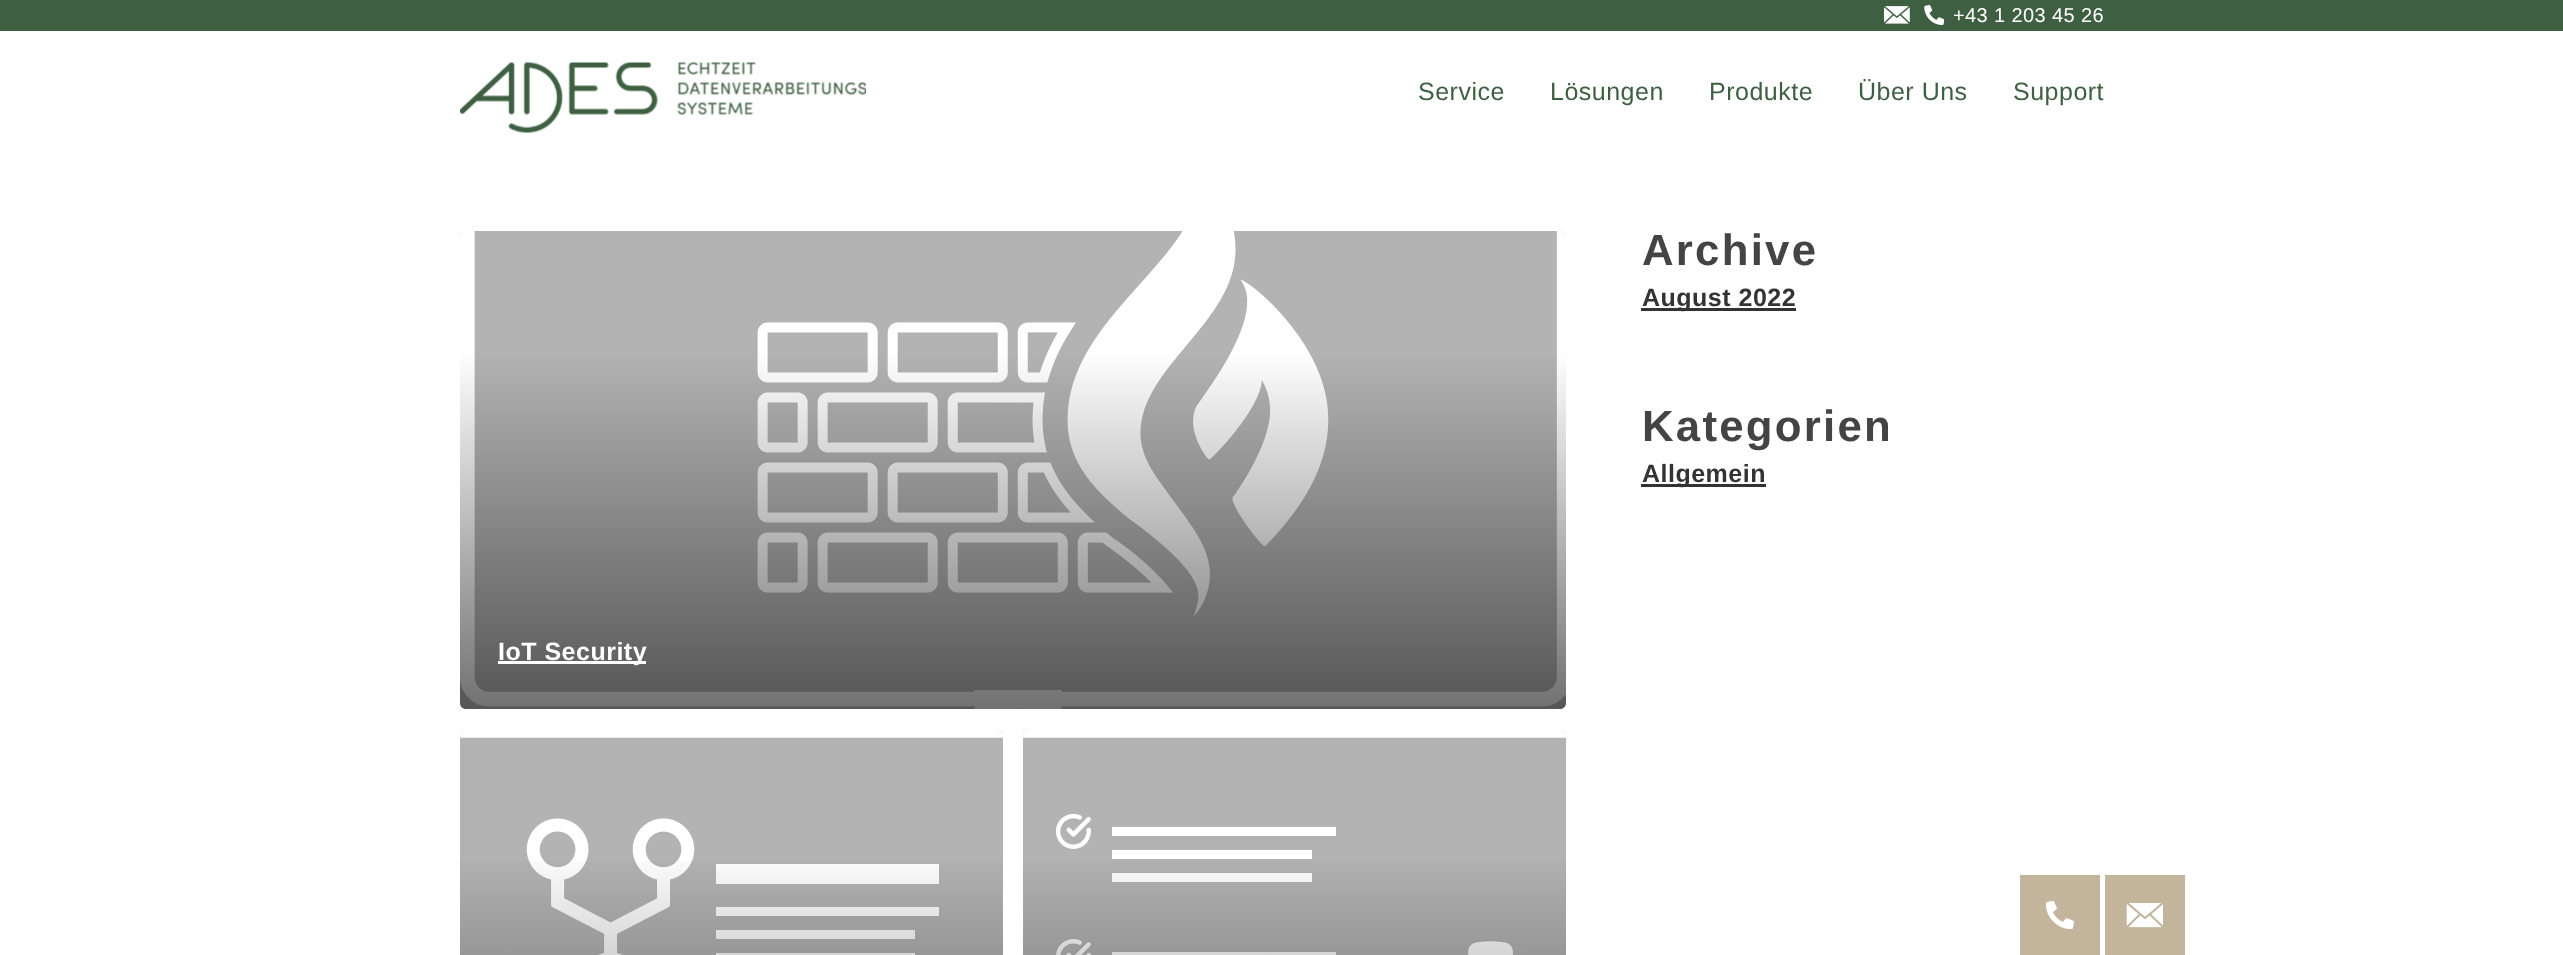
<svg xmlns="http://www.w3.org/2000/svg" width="2563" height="955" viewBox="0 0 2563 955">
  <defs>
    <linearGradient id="g1" gradientUnits="userSpaceOnUse" x1="1016" y1="351" x2="1016" y2="711"><stop offset="0" stop-color="#232323" stop-opacity="0"/><stop offset="1" stop-color="#232323" stop-opacity="0.65"/></linearGradient>
    <linearGradient id="g2" gradientUnits="userSpaceOnUse" x1="733" y1="849" x2="733" y2="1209"><stop offset="0" stop-color="#232323" stop-opacity="0"/><stop offset="1" stop-color="#232323" stop-opacity="0.65"/></linearGradient>
    <linearGradient id="g3" gradientUnits="userSpaceOnUse" x1="1296" y1="849" x2="1296" y2="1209"><stop offset="0" stop-color="#232323" stop-opacity="0"/><stop offset="1" stop-color="#232323" stop-opacity="0.65"/></linearGradient>
  </defs>
  <rect width="100%" height="100%" fill="#fff"/>
  <path d="M0 0h2563v31H0z" fill="#3e5f41"/>
  <image x="1884" y="6" width="26" height="18" href="img/1.png"/>
  <image x="1924" y="5" width="20" height="20" href="img/2.png"/>
  <image x="460" y="62" width="406" height="71" href="img/3.png"/>
  <path d="M1641 308h155v3H1641z" fill="#333"/>
  <path d="M1641 484h125v3H1641z" fill="#333"/>
  <rect x="460" y="231" width="1106" height="478" rx="6" fill="#b3b3b3"/>
  <image x="460" y="231" width="1106" height="478" href="img/4.png"/>
  <path d="M460 351H1566V703C1566 706.5 1563.5 709 1560 709H466C462.5 709 460 706.5 460 703Z" fill="url(#g1)"/>
  <path d="M498 661h148v3H498z" fill="#fff"/>
  <rect x="460" y="729" width="543" height="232" rx="6" fill="#b3b3b3"/>
  <image x="460" y="729" width="543" height="226" href="img/5.png"/>
  <path d="M460 861h543v94H460z" fill="url(#g2)"/>
  <rect x="1023" y="729" width="543" height="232" rx="6" fill="#b3b3b3"/>
  <image x="1023" y="729" width="543" height="226" href="img/6.png"/>
  <path d="M1023 861h543v94H1023z" fill="url(#g3)"/>
  <path d="M2020 875h80v80H2020z" fill="#c2b59b"/>
  <image x="2046" y="901" width="28" height="28" href="img/7.png"/>
  <path d="M2105 875h80v80H2105z" fill="#c2b59b"/>
  <image x="2126" y="903" width="37" height="25" href="img/8.png"/>
  <text x="1953" y="22" font-family="Liberation Sans" font-size="20" letter-spacing="0.4" fill="#fff">+43 1 203 45 26</text>
  <g font-family="Liberation Sans" font-size="25" letter-spacing="0.5" fill="#3e5f41">
    <text x="1418" y="100">Service</text>
    <text x="1550" y="100">Lösungen</text>
    <text x="1709" y="100">Produkte</text>
    <text x="1858" y="100">Über Uns</text>
    <text x="2013" y="100">Support</text>
  </g>
  <text x="1642" y="265" font-family="Liberation Sans" font-size="43.75" font-weight="bold" letter-spacing="2.25" fill="#444">Archive</text>
  <text x="1642" y="306" font-family="Liberation Sans" font-size="25" font-weight="bold" letter-spacing="0.5" fill="#333">August 2022</text>
  <text x="1642" y="441" font-family="Liberation Sans" font-size="43.75" font-weight="bold" letter-spacing="2.25" fill="#444">Kategorien</text>
  <text x="1642" y="482" font-family="Liberation Sans" font-size="25" font-weight="bold" letter-spacing="0.5" fill="#333">Allgemein</text>
  <text x="498" y="660" font-family="Liberation Sans" font-size="25" font-weight="bold" letter-spacing="0.5" fill="#fff">IoT Security</text>
</svg>
